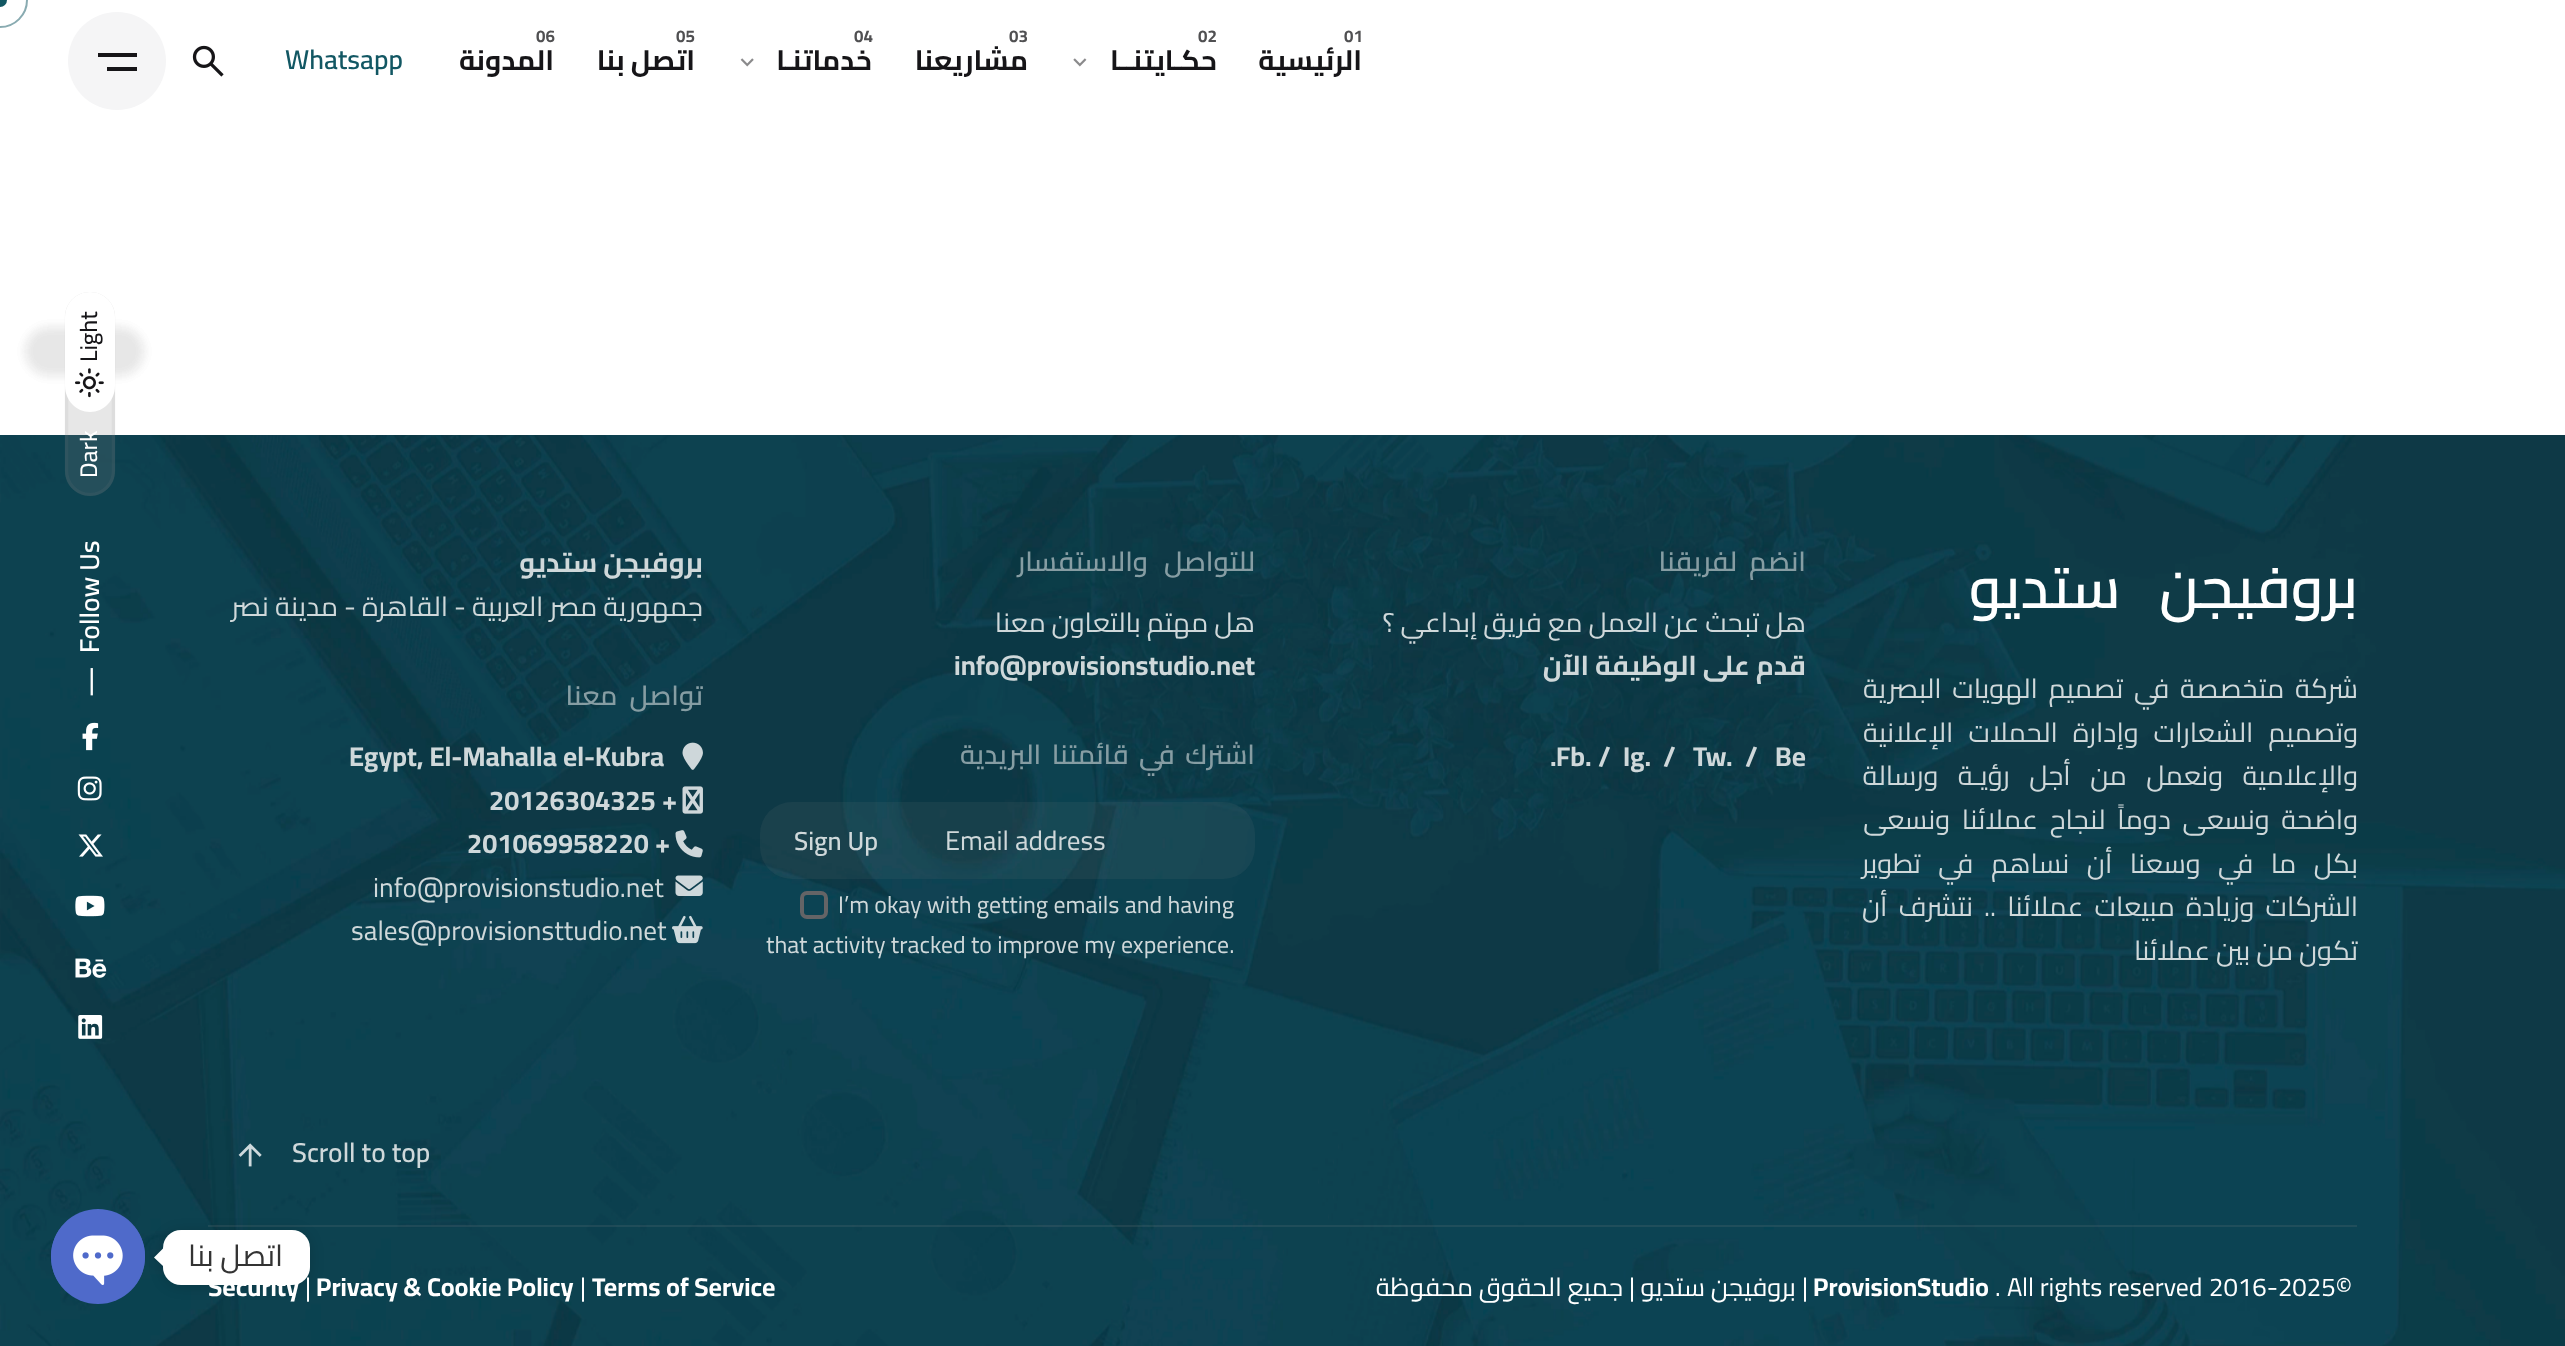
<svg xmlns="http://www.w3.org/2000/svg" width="2565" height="1346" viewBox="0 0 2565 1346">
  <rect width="100%" height="100%" fill="#fff"/>
  <circle cx="0" cy="0" r="27" fill="none" stroke="#89abb1" stroke-width="2"/>
  <circle cx="0" cy="0" r="7" fill="#125763"/>
  <image x="1073" y="58" width="14" height="9" href="img/1.png"/>
  <image x="740" y="58" width="14" height="9" href="img/2.png"/>
  <image x="192" y="45" width="32" height="32" href="img/3.png"/>
  <circle cx="117" cy="61" r="49" fill="#f5f5f6"/>
  <path d="M98 53h39v4H98z" fill="#161518"/>
  <path d="M107 67h30v4H107z" fill="#161518"/>
  <image x="0" y="435" width="2565" height="911" href="img/11.png"/>
  <path d="M65 471V317C65 303 76 292 90 292C104 292 115 303 115 317V471C115 485 104 496 90 496C76 496 65 485 65 471Z" fill="#88888933"/>
  <path d="M66.5 471V317.5C66.5 304.5 77 294 90 294C103 294 113.5 304.5 113.5 317.5V471C113.5 484 103 494.5 90 494.5C77 494.5 66.5 484 66.5 471Z" fill="none" stroke="#8888891a" stroke-width="3.5"/>
  <rect x="25" y="327" width="119" height="49" rx="24.5" fill="#1110130d" filter="blur(5px)"/>
  <rect x="25" y="327" width="119" height="49" rx="24.5" fill="#1110130d" filter="blur(5px)"/>
  <path d="M65 386V317C65 303 76 292 90 292C104 292 115 303 115 317V386C115 400 104 412 90 412C76 412 65 400 65 386Z" fill="#fff"/>
  <image x="75" y="368" width="29" height="30" href="img/4.png"/>
  <image x="82" y="722" width="17" height="29" href="img/5.png"/>
  <image x="77" y="776" width="25" height="25" href="img/6.png"/>
  <image x="78" y="834" width="25" height="23" href="img/7.png"/>
  <image x="75" y="895" width="30" height="22" href="img/8.png"/>
  <image x="75" y="958" width="32" height="20" href="img/9.png"/>
  <image x="78" y="1015" width="25" height="24" href="img/10.png"/>
  <rect x="760" y="802" width="495" height="77" rx="32" fill="#8888891a"/>
  <rect x="802" y="893" width="24" height="24" rx="5" fill="none" stroke="#646466" stroke-width="4"/>
  <image x="682" y="742" width="21" height="28" href="img/12.png"/>
  <image x="682" y="786" width="21" height="28" href="img/13.png"/>
  <image x="675" y="830" width="28" height="28" href="img/14.png"/>
  <image x="675" y="875" width="28" height="21" href="img/15.png"/>
  <image x="672" y="915" width="31" height="29" href="img/16.png"/>
  <image x="238" y="1143" width="24" height="24" href="img/17.png"/>
  <path d="M208 1225h2149v2H208z" fill="#88888929"/>
  <rect x="163" y="1232" width="147" height="54" rx="18" fill="#00000026" filter="blur(7px)"/>
  <rect x="163" y="1230" width="147" height="55" rx="18" fill="#fff"/>
  <path d="M163 1248.5V1266L154 1257.5Z" fill="#fff"/>
  <rect x="51" y="1209" width="94" height="95" rx="47" fill="#4f6aca"/>
  <image x="51" y="1226" width="94" height="61" href="img/18.png"/>
  <text x="1344" y="42" font-family="Cairo" font-size="17" font-weight="bold" fill="#505052">01</text>
  <text x="1362" y="70" font-family="Cairo" font-size="28" font-weight="bold" direction="rtl" fill="#161518">الرئيسية</text>
  <text x="1198" y="42" font-family="Cairo" font-size="17" font-weight="bold" fill="#505052">02</text>
  <text x="1217" y="70" font-family="Cairo" font-size="28" font-weight="bold" direction="rtl" fill="#161518">حكـايتنــا</text>
  <text x="1009" y="42" font-family="Cairo" font-size="17" font-weight="bold" fill="#505052">03</text>
  <text x="1028" y="70" font-family="Cairo" font-size="28" font-weight="bold" direction="rtl" fill="#161518">مشاريعنا</text>
  <text x="854" y="42" font-family="Cairo" font-size="17" font-weight="bold" fill="#505052">04</text>
  <text x="872" y="70" font-family="Cairo" font-size="28" font-weight="bold" direction="rtl" fill="#161518">خدماتنـا</text>
  <text x="676" y="42" font-family="Cairo" font-size="17" font-weight="bold" fill="#505052">05</text>
  <text x="695" y="70" font-family="Cairo" font-size="28" font-weight="bold" direction="rtl" fill="#161518">اتصل بنا</text>
  <text x="536" y="42" font-family="Cairo" font-size="17" font-weight="bold" fill="#505052">06</text>
  <text x="554" y="70" font-family="Cairo" font-size="28" font-weight="bold" direction="rtl" fill="#161518">المدونة</text>
  <text x="285" y="69" font-family="Cairo" font-size="27.25" font-weight="600" fill="#125763">Whatsapp</text>
  <text x="97" y="362" transform="rotate(-90 97 362)" font-family="Cairo" font-size="24" font-weight="500" fill="#161518">Light</text>
  <text x="97" y="478" transform="rotate(-90 97 478)" font-family="Cairo" font-size="24" font-weight="500" fill="#fff">Dark</text>
  <g font-family="Cairo" font-size="27.25" font-weight="600" fill="#fff">
    <text x="99" y="653" transform="rotate(-90 99 653)">Follow Us</text>
    <text x="99" y="697" transform="rotate(-90 99 697)">—</text>
  </g>
  <text x="2358" y="608" word-spacing="26" font-family="Cairo" font-size="58.25" font-weight="600" letter-spacing="-2" direction="rtl" fill="#fff">بروفيجن ستديو</text>
  <g font-family="Cairo" font-size="27.25" direction="rtl" fill="#cfd8da">
    <text x="2358" y="698" word-spacing="4.75">شركة متخصصة في تصميم الهويات البصرية</text>
    <text x="2358" y="742" word-spacing="9">وتصميم الشعارات وإدارة الحملات الإعلانية</text>
    <text x="2358" y="785" word-spacing="13.5">والإعلامية ونعمل من أجل رؤيـة ورسالة</text>
    <text x="2358" y="829" word-spacing="5.75">واضحة ونسعى دوماً لنجاح عملائنا ونسعى</text>
    <text x="2358" y="873" word-spacing="11.5">بكل ما في وسعنا أن نساهم في تطوير</text>
    <text x="2358" y="916" word-spacing="5">الشركات وزيادة مبيعات عملائنا</text>
  </g>
  <text x="1996" y="916" font-family="'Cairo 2'" font-size="27.25" direction="rtl" fill="#cfd8da">..</text>
  <g font-family="Cairo" font-size="27.25" direction="rtl" fill="#cfd8da">
    <text x="1973" y="916" word-spacing="5">نتشرف أن</text>
    <text x="2358" y="960">تكون من بين عملائنا</text>
  </g>
  <text x="1806" y="571" word-spacing="6" font-family="Cairo" font-size="27.25" font-weight="600" letter-spacing="-0.55" direction="rtl" fill="#869da3">انضم لفريقنا</text>
  <text x="1806" y="632" font-family="Cairo" font-size="27.25" direction="rtl" fill="#cfd8da">هل تبحث عن العمل مع فريق إبداعي ؟</text>
  <text x="1806" y="675" font-family="Cairo" font-size="27.25" font-weight="bold" direction="rtl" fill="#cfd8da">قدم على الوظيفة الآن</text>
  <g font-family="Cairo" font-size="27.25" font-weight="bold" fill="#cfd8da">
    <text x="1775" y="766">Be</text>
    <text x="1745" y="766">/</text>
    <text x="1693" y="766">Tw.</text>
    <text x="1663" y="766">/</text>
    <text x="1623" y="766">Ig.</text>
    <text x="1598" y="766">/</text>
    <text x="1556" y="766">Fb.</text>
    <text x="1550" y="766">.</text>
  </g>
  <text x="1255" y="571" word-spacing="10" font-family="Cairo" font-size="27.25" font-weight="600" letter-spacing="-0.55" direction="rtl" fill="#869da3">للتواصل والاستفسار</text>
  <text x="1255" y="632" font-family="Cairo" font-size="27.25" direction="rtl" fill="#cfd8da">هل مهتم بالتعاون معنا</text>
  <text x="954" y="675" font-family="Cairo" font-size="27.25" font-weight="bold" fill="#cfd8da">info@provisionstudio.net</text>
  <text x="1255" y="764" word-spacing="4.5" font-family="Cairo" font-size="27.25" font-weight="600" letter-spacing="-0.55" direction="rtl" fill="#869da3">اشترك في قائمتنا البريدية</text>
  <text x="945" y="850" font-family="'Cairo 2'" font-size="27.25" fill="#cfd8da">Email address</text>
  <text x="794" y="850" font-family="Cairo" font-size="26" font-weight="600" fill="#cfd8da">Sign Up</text>
  <g font-family="'Cairo 2'" font-size="23.9" fill="#cfd8da">
    <text x="838" y="913">I’m okay with getting emails and having</text>
    <text x="766" y="953">that activity tracked to improve my experience.</text>
  </g>
  <text x="703" y="572" font-family="Cairo" font-size="27.25" font-weight="bold" direction="rtl" fill="#cfd8da">بروفيجن ستديو</text>
  <text x="703" y="616" font-family="Cairo" font-size="27.25" direction="rtl" fill="#cfd8da">جمهورية مصر العربية</text>
  <text x="466" y="616" font-family="'Cairo 2'" font-size="27.25" direction="rtl" fill="#cfd8da">-</text>
  <text x="448" y="616" font-family="Cairo" font-size="27.25" direction="rtl" fill="#cfd8da">القاهرة</text>
  <text x="356" y="616" font-family="'Cairo 2'" font-size="27.25" direction="rtl" fill="#cfd8da">-</text>
  <text x="338" y="616" font-family="Cairo" font-size="27.25" direction="rtl" fill="#cfd8da">مدينة نصر</text>
  <text x="703" y="705" word-spacing="6" font-family="Cairo" font-size="27.25" font-weight="600" letter-spacing="-0.55" direction="rtl" fill="#869da3">تواصل معنا</text>
  <g font-family="Cairo" font-size="27.25" font-weight="bold" fill="#cfd8da">
    <text x="349" y="766">Egypt, El-Mahalla el-Kubra</text>
    <text x="662" y="810">+</text>
    <text x="489" y="810">20126304325</text>
    <text x="655" y="853">+</text>
    <text x="467" y="853">201069958220</text>
  </g>
  <g font-family="'Cairo 2'" font-size="27.25" fill="#cfd8da">
    <text x="373" y="897">info@provisionstudio.net</text>
    <text x="351" y="940">sales@provisionsttudio.net</text>
  </g>
  <text x="292" y="1162" font-family="Cairo" font-size="27.25" font-weight="600" fill="#cfd8da">Scroll to top</text>
  <g font-family="'Cairo 2'" font-size="25.75" fill="#fff">
    <text x="2209" y="1296">2016-2025©</text>
    <text x="2022" y="1296">ll rights reserved</text>
  </g>
  <text x="2007" y="1296" font-family="Cairo" font-size="25.75" fill="#fff">A</text>
  <text x="1995" y="1296" font-family="'Cairo 2'" font-size="25.75" fill="#fff">.</text>
  <text x="1813" y="1296" font-family="Cairo" font-size="25.75" font-weight="bold" fill="#fff">ProvisionStudio</text>
  <text x="1808" y="1296" font-family="'Cairo 2'" font-size="25.75" direction="rtl" fill="#fff">|</text>
  <text x="1796" y="1296" font-family="Cairo" font-size="25.75" direction="rtl" fill="#fff">بروفيجن ستديو</text>
  <text x="1635" y="1296" font-family="'Cairo 2'" font-size="25.75" direction="rtl" fill="#fff">|</text>
  <text x="1623" y="1296" font-family="Cairo" font-size="25.75" direction="rtl" fill="#fff">جميع الحقوق محفوظة</text>
  <text x="592" y="1296" font-family="Cairo" font-size="25.75" font-weight="bold" fill="#fff">Terms of Service</text>
  <text x="580" y="1296" font-family="'Cairo 2'" font-size="25.75" fill="#fff">|</text>
  <text x="316" y="1296" font-family="Cairo" font-size="25.75" font-weight="bold" fill="#fff">Privacy &amp; Cookie Policy</text>
  <text x="305" y="1296" font-family="'Cairo 2'" font-size="25.75" fill="#fff">|</text>
  <text x="208" y="1296" font-family="Cairo" font-size="25.75" font-weight="bold" fill="#fff">Security</text>
  <text x="283" y="1266" font-family="Cairo" font-size="30" direction="rtl" fill="#333">اتصل بنا</text>
</svg>
